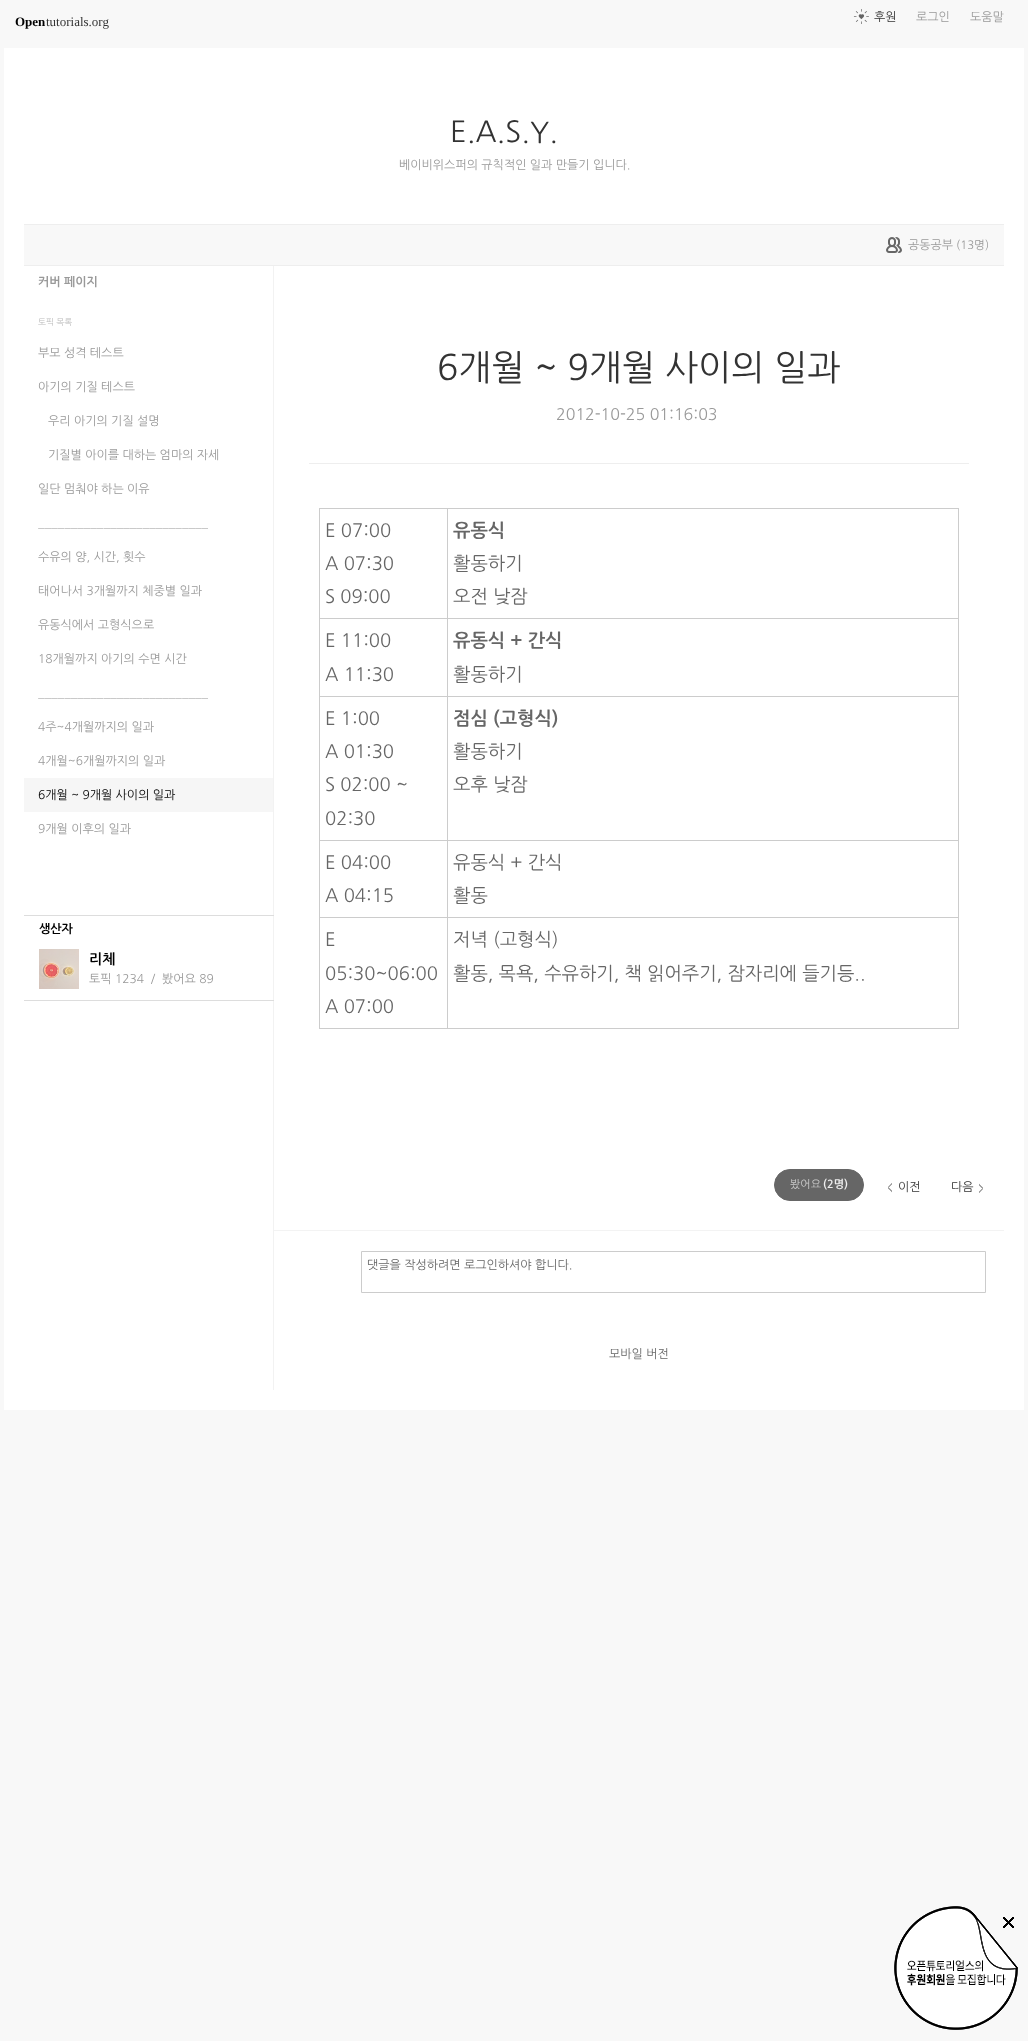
<svg xmlns="http://www.w3.org/2000/svg" width="1028" height="2041" viewBox="0 0 1028 2041">
  <rect width="100%" height="100%" fill="#f8f8f8"/>
  <image x="853" y="9" width="16" height="15" href="img/1.png"/>
  <path d="M4 48h1020v1362H4z" fill="#fff"/>
  <path d="M24 225h980v40H24z" fill="#f8f8f8"/>
  <path d="M24 224h980v1H24z" fill="#eee"/>
  <path d="M24 265h980v1H24z" fill="#eee"/>
  <image x="886" y="237" width="16" height="16" href="img/2.png"/>
  <path d="M273 266h1v1124H273z" fill="#f2f2f2"/>
  <path d="M24 778h249v34H24z" fill="#f6f6f6"/>
  <path d="M24 915h250v1H24z" fill="#ddd"/>
  <path d="M24 1000h250v1H24z" fill="#ddd"/>
  <image x="39" y="949" width="40" height="40" href="img/3.png"/>
  <path d="M309 463h660v1H309z" fill="#eee"/>
  <path d="M447 508h512v1H447z" fill="#ccc"/>
  <path d="M447 618h512v1H447z" fill="#ccc"/>
  <path d="M447 696h512v1H447z" fill="#ccc"/>
  <path d="M447 840h512v1H447z" fill="#ccc"/>
  <path d="M447 917h512v1H447z" fill="#ccc"/>
  <path d="M958 917h1v112H958z" fill="#ccc"/>
  <path d="M447 1028h512v1H447z" fill="#ccc"/>
  <path d="M447 917h1v112H447z" fill="#ccc"/>
  <path d="M319 917h129v1H319z" fill="#ccc"/>
  <path d="M447 840h1v78H447z" fill="#ccc"/>
  <path d="M319 840h129v1H319z" fill="#ccc"/>
  <path d="M447 696h1v145H447z" fill="#ccc"/>
  <path d="M319 696h129v1H319z" fill="#ccc"/>
  <path d="M447 618h1v79H447z" fill="#ccc"/>
  <path d="M319 618h129v1H319z" fill="#ccc"/>
  <path d="M447 508h1v111H447z" fill="#ccc"/>
  <path d="M319 508h129v1H319z" fill="#ccc"/>
  <path d="M319 1028h129v1H319z" fill="#ccc"/>
  <path d="M319 917h1v112H319z" fill="#ccc"/>
  <path d="M319 840h1v78H319z" fill="#ccc"/>
  <path d="M319 696h1v145H319z" fill="#ccc"/>
  <path d="M319 618h1v79H319z" fill="#ccc"/>
  <path d="M319 508h1v111H319z" fill="#ccc"/>
  <path d="M958 840h1v78H958z" fill="#ccc"/>
  <path d="M958 696h1v145H958z" fill="#ccc"/>
  <path d="M958 618h1v79H958z" fill="#ccc"/>
  <path d="M958 508h1v111H958z" fill="#ccc"/>
  <rect x="774.5" y="1169.5" width="89" height="31" rx="15.5" fill="#666" stroke="#666"/>
  <image x="888" y="1183" width="4" height="10" href="img/4.png"/>
  <image x="979" y="1183" width="4" height="10" href="img/5.png"/>
  <path d="M274 1230h730v1H274z" fill="#f3f3f3"/>
  <path d="M361.5 1251.5h624v41H361.5z" fill="none" stroke="#ccc"/>
  <image x="894" y="1906" width="124" height="124" href="img/6.png"/>
  <image x="1003" y="1917" width="11" height="11" href="img/7.png"/>
  <text x="15" y="26" font-family="Liberation Serif" font-size="13" font-weight="bold" fill="#000">Open</text>
  <text x="46" y="26" font-family="Liberation Serif" font-size="13" fill="#333">tutorials.org</text>
  <text x="874" y="21" font-family="NanumGothic" font-size="12" fill="#333">후원</text>
  <g font-family="NanumGothic" font-size="12" fill="#999">
    <text x="916" y="21">로그인</text>
    <text x="970" y="21">도움말</text>
  </g>
  <text x="450" y="142" font-family="NanumGothic" font-size="29" fill="#333">E.A.S.Y.</text>
  <g font-family="NanumGothic" font-size="12" fill="#999">
    <text x="399" y="169">베이비위스퍼의 규칙적인 일과 만들기 입니다.</text>
    <text x="908" y="249">공동공부</text>
  </g>
  <text x="956" y="249" font-family="NanumGothic" font-size="11.5" fill="#999">(13명)</text>
  <text x="38" y="286" font-family="NanumGothic" font-size="12" font-weight="bold" fill="#999">커버 페이지</text>
  <text x="38" y="325" font-family="NanumGothic" font-size="8.5" fill="#bbb">토픽 목록</text>
  <g font-family="NanumGothic" font-size="12" fill="#999">
    <text x="38" y="357">부모 성격 테스트</text>
    <text x="38" y="391">아기의 기질 테스트</text>
    <text x="48" y="425">우리 아기의 기질 설명</text>
    <text x="48" y="459">기질별 아이를 대하는 엄마의 자세</text>
    <text x="38" y="493">일단 멈춰야 하는 이유</text>
    <text x="38" y="527">__________________________</text>
    <text x="38" y="561">수유의 양, 시간, 횟수</text>
    <text x="38" y="595">태어나서 3개월까지 체중별 일과</text>
    <text x="38" y="629">유동식에서 고형식으로</text>
    <text x="38" y="663">18개월까지 아기의 수면 시간</text>
    <text x="38" y="697">__________________________</text>
    <text x="38" y="731">4주~4개월까지의 일과</text>
    <text x="38" y="765">4개월~6개월까지의 일과</text>
  </g>
  <text x="38" y="799" font-family="NanumGothic" font-size="12" fill="#000">6개월 ~ 9개월 사이의 일과</text>
  <text x="38" y="833" font-family="NanumGothic" font-size="12" fill="#999">9개월 이후의 일과</text>
  <text x="39" y="933" font-family="NanumGothic" font-size="12" font-weight="bold" fill="#000">생산자</text>
  <text x="89" y="964" font-family="NanumGothic" font-size="14" font-weight="bold" fill="#000">리체</text>
  <text x="89" y="983" font-family="NanumGothic" font-size="12" fill="#999" xml:space="preserve">토픽 1234  /  봤어요 89</text>
  <text x="437" y="380" font-family="NanumGothic" font-size="35.25" fill="#333">6개월 ~ 9개월 사이의 일과</text>
  <text x="556" y="420" font-family="NanumGothic" font-size="16" fill="#999">2012-10-25 01:16:03</text>
  <g font-family="NanumGothic" font-size="18.5" fill="#666">
    <text x="325" y="537">E 07:00</text>
    <text x="325" y="570">A 07:30</text>
    <text x="325" y="603">S 09:00</text>
  </g>
  <text x="453" y="537" font-family="NanumGothic" font-size="18.5" font-weight="bold" fill="#666">유동식</text>
  <g font-family="NanumGothic" font-size="18.5" fill="#666">
    <text x="453" y="570">활동하기</text>
    <text x="453" y="603">오전 낮잠</text>
    <text x="325" y="647">E 11:00</text>
    <text x="325" y="681">A 11:30</text>
  </g>
  <text x="453" y="647" font-family="NanumGothic" font-size="18.5" font-weight="bold" fill="#666">유동식 + 간식</text>
  <g font-family="NanumGothic" font-size="18.5" fill="#666">
    <text x="453" y="681">활동하기</text>
    <text x="325" y="725">E 1:00</text>
    <text x="325" y="758">A 01:30</text>
    <text x="325" y="791">S 02:00 ~</text>
    <text x="325" y="825">02:30</text>
  </g>
  <text x="453" y="725" font-family="NanumGothic" font-size="18.5" font-weight="bold" fill="#666">점심 (고형식)</text>
  <g font-family="NanumGothic" font-size="18.5" fill="#666">
    <text x="453" y="758">활동하기</text>
    <text x="453" y="791">오후 낮잠</text>
    <text x="325" y="869">E 04:00</text>
    <text x="325" y="902">A 04:15</text>
    <text x="453" y="869">유동식 + 간식</text>
    <text x="453" y="902">활동</text>
    <text x="325" y="946">E</text>
    <text x="325" y="980">05:30~06:00</text>
    <text x="325" y="1013">A 07:00</text>
    <text x="453" y="946">저녁 (고형식)</text>
    <text x="453" y="980">활동, 목욕, 수유하기, 책 읽어주기, 잠자리에 들기등..</text>
  </g>
  <text x="790" y="1188" font-family="NanumGothic" font-size="11" fill="#ccc">봤어요</text>
  <text x="823" y="1188" font-family="NanumGothic" font-size="11" font-weight="bold" fill="#eee">(2명)</text>
  <g font-family="NanumGothic" font-size="12" fill="#333">
    <text x="898" y="1191">이전</text>
    <text x="951" y="1191">다음</text>
  </g>
  <g font-family="NanumGothic" font-size="12" fill="#666">
    <text x="367" y="1269">댓글을 작성하려면 로그인하셔야 합니다.</text>
    <text x="609" y="1358">모바일 버전</text>
  </g>
</svg>
